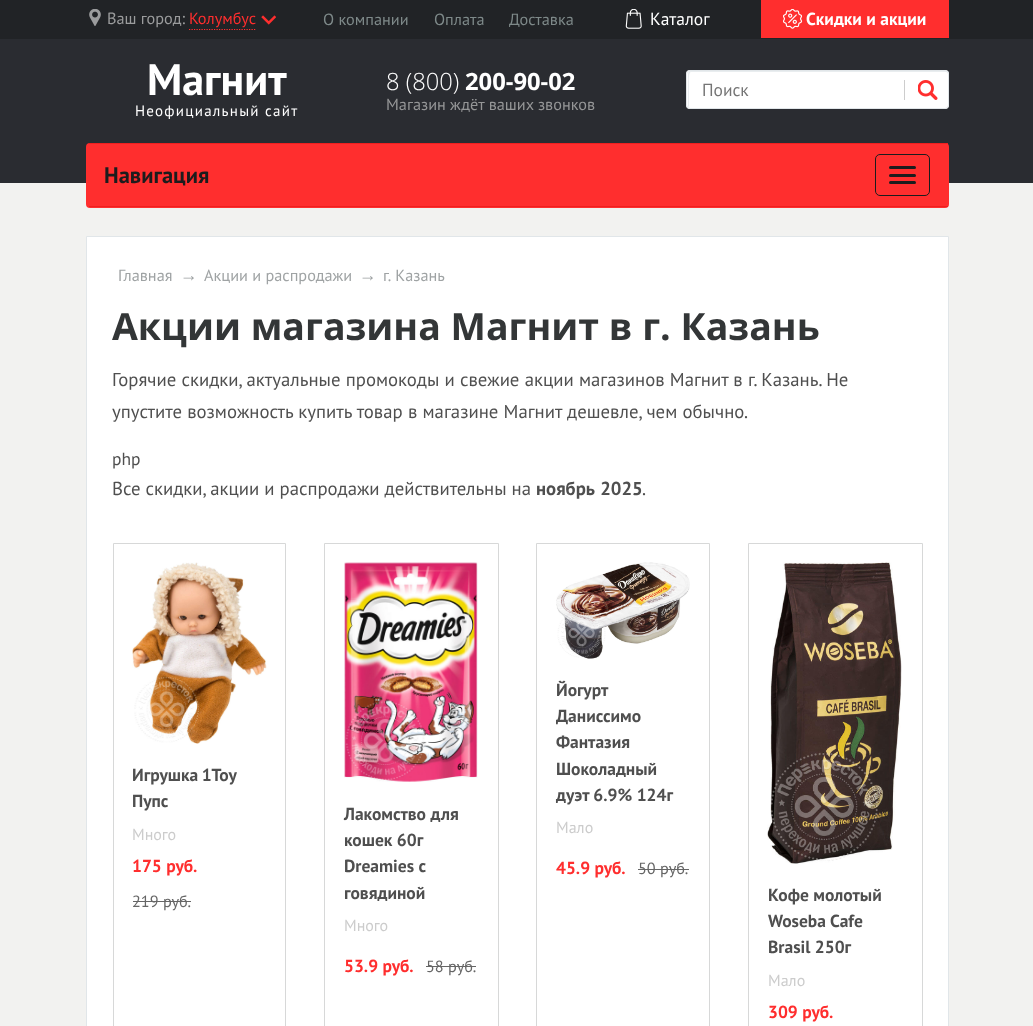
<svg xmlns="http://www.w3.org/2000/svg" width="1033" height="1026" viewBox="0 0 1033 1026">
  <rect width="100%" height="100%" fill="#f2f2f0"/>
  <path d="M0 39h1033v144H0z" fill="#2a2c31"/>
  <path d="M0 0h1033v39H0z" fill="#212326"/>
  <image x="89" y="9" width="12" height="17" href="img/1.png"/>
  <path d="M189 29.5H256" fill="none" stroke="#ff2e2e" stroke-width="1.2" stroke-dasharray="1.25 1.25"/>
  <image x="261" y="15" width="15" height="10" href="img/2.png"/>
  <image x="625" y="9" width="17" height="20" href="img/3.png"/>
  <path d="M761 0h188v38H761z" fill="#ff2e2e"/>
  <image x="783" y="9" width="20" height="20" href="img/4.png"/>
  <rect x="686" y="70" width="263" height="39" rx="4" fill="#fff"/>
  <path d="M691 72H946L948 73C948 72 947 71 946 71H690C689 71 688 72 688 74V106C688 106 689 107 689 108V85C689 85 688 72 691 72Z" fill="#e9edef"/>
  <rect x="686.5" y="70.5" width="262" height="38" rx="3.5" fill="none" stroke="#e1e6e9"/>
  <path d="M904 80h1v20H904z" fill="#cdcdcd"/>
  <image x="918" y="80" width="20" height="20" href="img/5.png"/>
  <rect x="86" y="143" width="863" height="65" rx="4" fill="#ff2e2e"/>
  <path d="M89 143h859v1H89z" fill="#f01f1f"/>
  <path d="M89 206h859v1H89z" fill="#f01f1f"/>
  <rect x="875.5" y="154.5" width="54" height="41" rx="4.5" fill="none" stroke="#1c1c1d"/>
  <rect x="889" y="166" width="27" height="3" rx="1.5" fill="#1c1c1d"/>
  <rect x="889" y="174" width="27" height="3" rx="1.5" fill="#1c1c1d"/>
  <rect x="889" y="181" width="27" height="3" rx="1.5" fill="#1c1c1d"/>
  <path d="M86.5 236.5h862v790H86.5z" fill="#fff" stroke="#e1e6e9"/>
  <path d="M113.5 543.5h172v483H113.5z" fill="none" stroke="#d7d8d8"/>
  <image x="132" y="562" width="135" height="182" href="img/6.png"/>
  <path d="M133 901h58v1H133z" fill="#666"/>
  <path d="M324.5 543.5h174v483H324.5z" fill="none" stroke="#d7d8d8"/>
  <image x="344" y="562" width="134" height="220" href="img/7.png"/>
  <path d="M426 966h50v1H426z" fill="#666"/>
  <path d="M536.5 543.5h173v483H536.5z" fill="none" stroke="#d7d8d8"/>
  <image x="556" y="562" width="134" height="97" href="img/8.png"/>
  <path d="M638 869h51v1H638z" fill="#666"/>
  <path d="M748.5 543.5h174v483H748.5z" fill="none" stroke="#d7d8d8"/>
  <image x="767" y="562" width="135" height="302" href="img/9.png"/>
  <text x="107" y="24" font-family="PT Sans" font-size="16.25" fill="#9b9c9d">Ваш город:</text>
  <text x="189" y="24" font-family="PT Sans" font-size="16.25" fill="#ff2e2e">Колумбус</text>
  <g font-family="PT Sans" font-size="16.25" fill="#7e8989">
    <text x="323" y="25">О компании</text>
    <text x="434" y="25">Оплата</text>
    <text x="509" y="25">Доставка</text>
  </g>
  <text x="650" y="25" font-family="PT Sans" font-size="17.5" fill="#fff">Каталог</text>
  <text x="806" y="25" font-family="PT Sans" font-size="17.5" font-weight="bold" fill="#fff">Скидки и акции</text>
  <text x="147" y="95" font-family="PT Sans" font-size="44" font-weight="bold" fill="#fff">Магнит</text>
  <text x="135" y="116" font-family="PT Sans" font-size="15" letter-spacing="1.25" fill="#fff">Неофициальный сайт</text>
  <text x="386" y="90" font-family="Open Sans" font-size="23.75" font-weight="300" fill="#fff">8 (800)</text>
  <text x="465" y="90" font-family="Open Sans" font-size="23.75" font-weight="bold" fill="#fff">200-90-02</text>
  <text x="386" y="110" font-family="PT Sans" font-size="16.25" fill="#959697">Магазин ждёт ваших звонков</text>
  <text x="702" y="96" font-family="PT Sans" font-size="17.5" fill="#757575">Поиск</text>
  <text x="104" y="183" font-family="PT Sans" font-size="22.5" font-weight="bold" fill="#1c1c1d">Навигация</text>
  <text x="118" y="281" font-family="PT Sans" font-size="16.25" fill="#9fa3a4">Главная</text>
  <text x="180" y="281" font-family="Liberation Serif" font-size="17.5" fill="#9fa3a4">→</text>
  <text x="204" y="281" font-family="PT Sans" font-size="16.25" fill="#9fa3a4">Акции и распродажи</text>
  <text x="359" y="281" font-family="Liberation Serif" font-size="17.5" fill="#9fa3a4">→</text>
  <text x="383" y="281" word-spacing="1" font-family="PT Sans" font-size="16.25" fill="#9fa3a4">г. Казань</text>
  <text x="112" y="340" font-family="Open Sans" font-size="37.5" font-weight="bold" fill="#333637">Акции магазина Магнит в г. Казань</text>
  <g font-family="PT Sans" font-size="18.75" fill="#4f4f4f">
    <text x="112" y="386" word-spacing="0.25">Горячие скидки, актуальные промокоды и свежие акции магазинов Магнит в г. Казань. Не</text>
    <text x="112" y="418" word-spacing="0.25">упустите возможность купить товар в магазине Магнит дешевле, чем обычно.</text>
  </g>
  <text x="112" y="465" font-family="PT Sans" font-size="17.5" fill="#4f4f4f">php</text>
  <text x="112" y="495" font-family="PT Sans" font-size="18.75" fill="#4f4f4f">Все скидки, акции и распродажи действительны на</text>
  <text x="536" y="495" word-spacing="1" font-family="PT Sans" font-size="18.75" font-weight="bold" fill="#4f4f4f">ноябрь 2025</text>
  <text x="642" y="495" font-family="PT Sans" font-size="18.75" fill="#4f4f4f">.</text>
  <g font-family="PT Sans" font-size="17.5" font-weight="bold" fill="#4f4f4f">
    <text x="132" y="781" word-spacing="-1">Игрушка 1Toy</text>
    <text x="132" y="807">Пупс</text>
  </g>
  <text x="132" y="840" font-family="PT Sans" font-size="16" fill="#ccc">Много</text>
  <text x="132" y="872" font-family="PT Sans" font-size="17.5" font-weight="bold" fill="#ff2e2e">175 руб.</text>
  <text x="132" y="907" font-family="PT Sans" font-size="16.25" fill="#666">219 руб.</text>
  <g font-family="PT Sans" font-size="17.5" font-weight="bold" fill="#4f4f4f">
    <text x="344" y="820">Лакомство для</text>
    <text x="344" y="846">кошек 60г</text>
    <text x="344" y="872">Dreamies с</text>
    <text x="344" y="899">говядиной</text>
  </g>
  <text x="344" y="931" font-family="PT Sans" font-size="16" fill="#ccc">Много</text>
  <text x="344" y="972" font-family="PT Sans" font-size="17.5" font-weight="bold" fill="#ff2e2e">53.9 руб.</text>
  <text x="426" y="972" font-family="PT Sans" font-size="16.25" fill="#666">58 руб.</text>
  <g font-family="PT Sans" font-size="17.5" font-weight="bold" fill="#4f4f4f">
    <text x="556" y="696">Йогурт</text>
    <text x="556" y="722">Даниссимо</text>
    <text x="556" y="748">Фантазия</text>
    <text x="556" y="775">Шоколадный</text>
    <text x="556" y="801">дуэт 6.9% 124г</text>
  </g>
  <text x="556" y="833" font-family="PT Sans" font-size="16" fill="#ccc">Мало</text>
  <text x="556" y="874" font-family="PT Sans" font-size="17.5" font-weight="bold" fill="#ff2e2e">45.9 руб.</text>
  <text x="638" y="874" font-family="PT Sans" font-size="16.25" fill="#666">50 руб.</text>
  <g font-family="PT Sans" font-size="17.5" font-weight="bold" fill="#4f4f4f">
    <text x="768" y="901">Кофе молотый</text>
    <text x="768" y="927">Woseba Cafe</text>
    <text x="768" y="953">Brasil 250г</text>
  </g>
  <text x="768" y="986" font-family="PT Sans" font-size="16" fill="#ccc">Мало</text>
  <text x="768" y="1018" font-family="PT Sans" font-size="17.5" font-weight="bold" fill="#ff2e2e">309 руб.</text>
</svg>
